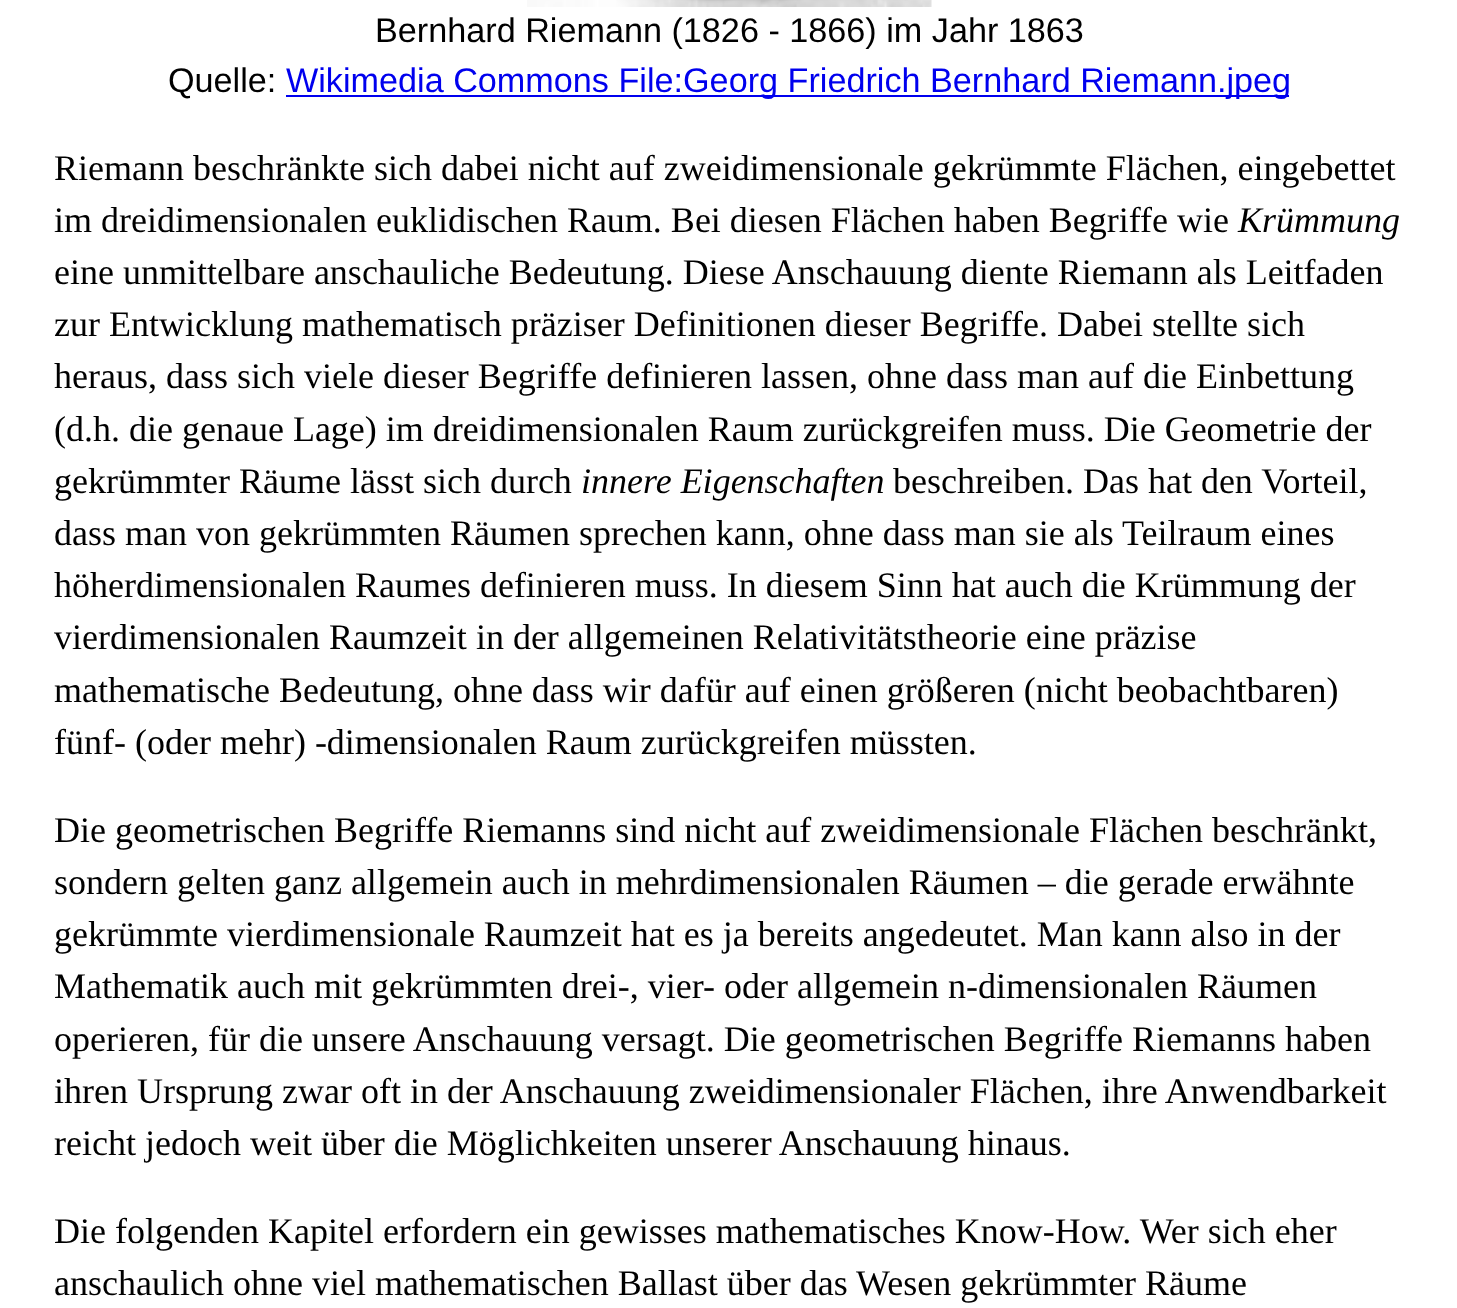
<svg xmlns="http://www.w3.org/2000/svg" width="1457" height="1308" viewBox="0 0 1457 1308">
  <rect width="100%" height="100%" fill="#fff"/>
  <image x="527" y="0" width="405" height="7" href="img/1.png"/>
  <path d="M286 95h1003v2H286z" fill="#00e"/>
  <g font-family="Liberation Sans" font-size="34.2" fill="#000">
    <text x="375" y="42">Bernhard Riemann (1826 - 1866) im Jahr 1863</text>
    <text x="168" y="92">Quelle:</text>
  </g>
  <text x="286" y="92" font-family="Liberation Sans" font-size="34.2" fill="#00e">Wikimedia Commons File:Georg Friedrich Bernhard Riemann.jpeg</text>
  <g font-family="Liberation Serif" font-size="36" fill="#000">
    <text x="54" y="180">Riemann beschränkte sich dabei nicht auf zweidimensionale gekrümmte Flächen, eingebettet</text>
    <text x="54" y="232">im dreidimensionalen euklidischen Raum. Bei diesen Flächen haben Begriffe wie</text>
  </g>
  <text x="1238" y="232" font-family="Liberation Serif" font-size="36" font-style="italic" fill="#000">Krümmung</text>
  <g font-family="Liberation Serif" font-size="36" fill="#000">
    <text x="54" y="284">eine unmittelbare anschauliche Bedeutung. Diese Anschauung diente Riemann als Leitfaden</text>
    <text x="54" y="336">zur Entwicklung mathematisch präziser Definitionen dieser Begriffe. Dabei stellte sich</text>
    <text x="54" y="388">heraus, dass sich viele dieser Begriffe definieren lassen, ohne dass man auf die Einbettung</text>
    <text x="54" y="441">(d.h. die genaue Lage) im dreidimensionalen Raum zurückgreifen muss. Die Geometrie der</text>
    <text x="54" y="493">gekrümmter Räume lässt sich durch</text>
  </g>
  <text x="581" y="493" font-family="Liberation Serif" font-size="36" font-style="italic" fill="#000">innere Eigenschaften</text>
  <g font-family="Liberation Serif" font-size="36" fill="#000">
    <text x="893" y="493">beschreiben. Das hat den Vorteil,</text>
    <text x="54" y="545">dass man von gekrümmten Räumen sprechen kann, ohne dass man sie als Teilraum eines</text>
    <text x="54" y="597">höherdimensionalen Raumes definieren muss. In diesem Sinn hat auch die Krümmung der</text>
    <text x="54" y="649">vierdimensionalen Raumzeit in der allgemeinen Relativitätstheorie eine präzise</text>
    <text x="54" y="702">mathematische Bedeutung, ohne dass wir dafür auf einen größeren (nicht beobachtbaren)</text>
    <text x="54" y="754">fünf- (oder mehr) -dimensionalen Raum zurückgreifen müssten.</text>
    <text x="54" y="842">Die geometrischen Begriffe Riemanns sind nicht auf zweidimensionale Flächen beschränkt,</text>
    <text x="54" y="894">sondern gelten ganz allgemein auch in mehrdimensionalen Räumen – die gerade erwähnte</text>
    <text x="54" y="946">gekrümmte vierdimensionale Raumzeit hat es ja bereits angedeutet. Man kann also in der</text>
    <text x="54" y="998">Mathematik auch mit gekrümmten drei-, vier- oder allgemein n-dimensionalen Räumen</text>
    <text x="54" y="1051">operieren, für die unsere Anschauung versagt. Die geometrischen Begriffe Riemanns haben</text>
    <text x="54" y="1103">ihren Ursprung zwar oft in der Anschauung zweidimensionaler Flächen, ihre Anwendbarkeit</text>
    <text x="54" y="1155">reicht jedoch weit über die Möglichkeiten unserer Anschauung hinaus.</text>
    <text x="54" y="1243">Die folgenden Kapitel erfordern ein gewisses mathematisches Know-How. Wer sich eher</text>
    <text x="54" y="1295">anschaulich ohne viel mathematischen Ballast über das Wesen gekrümmter Räume</text>
  </g>
</svg>
